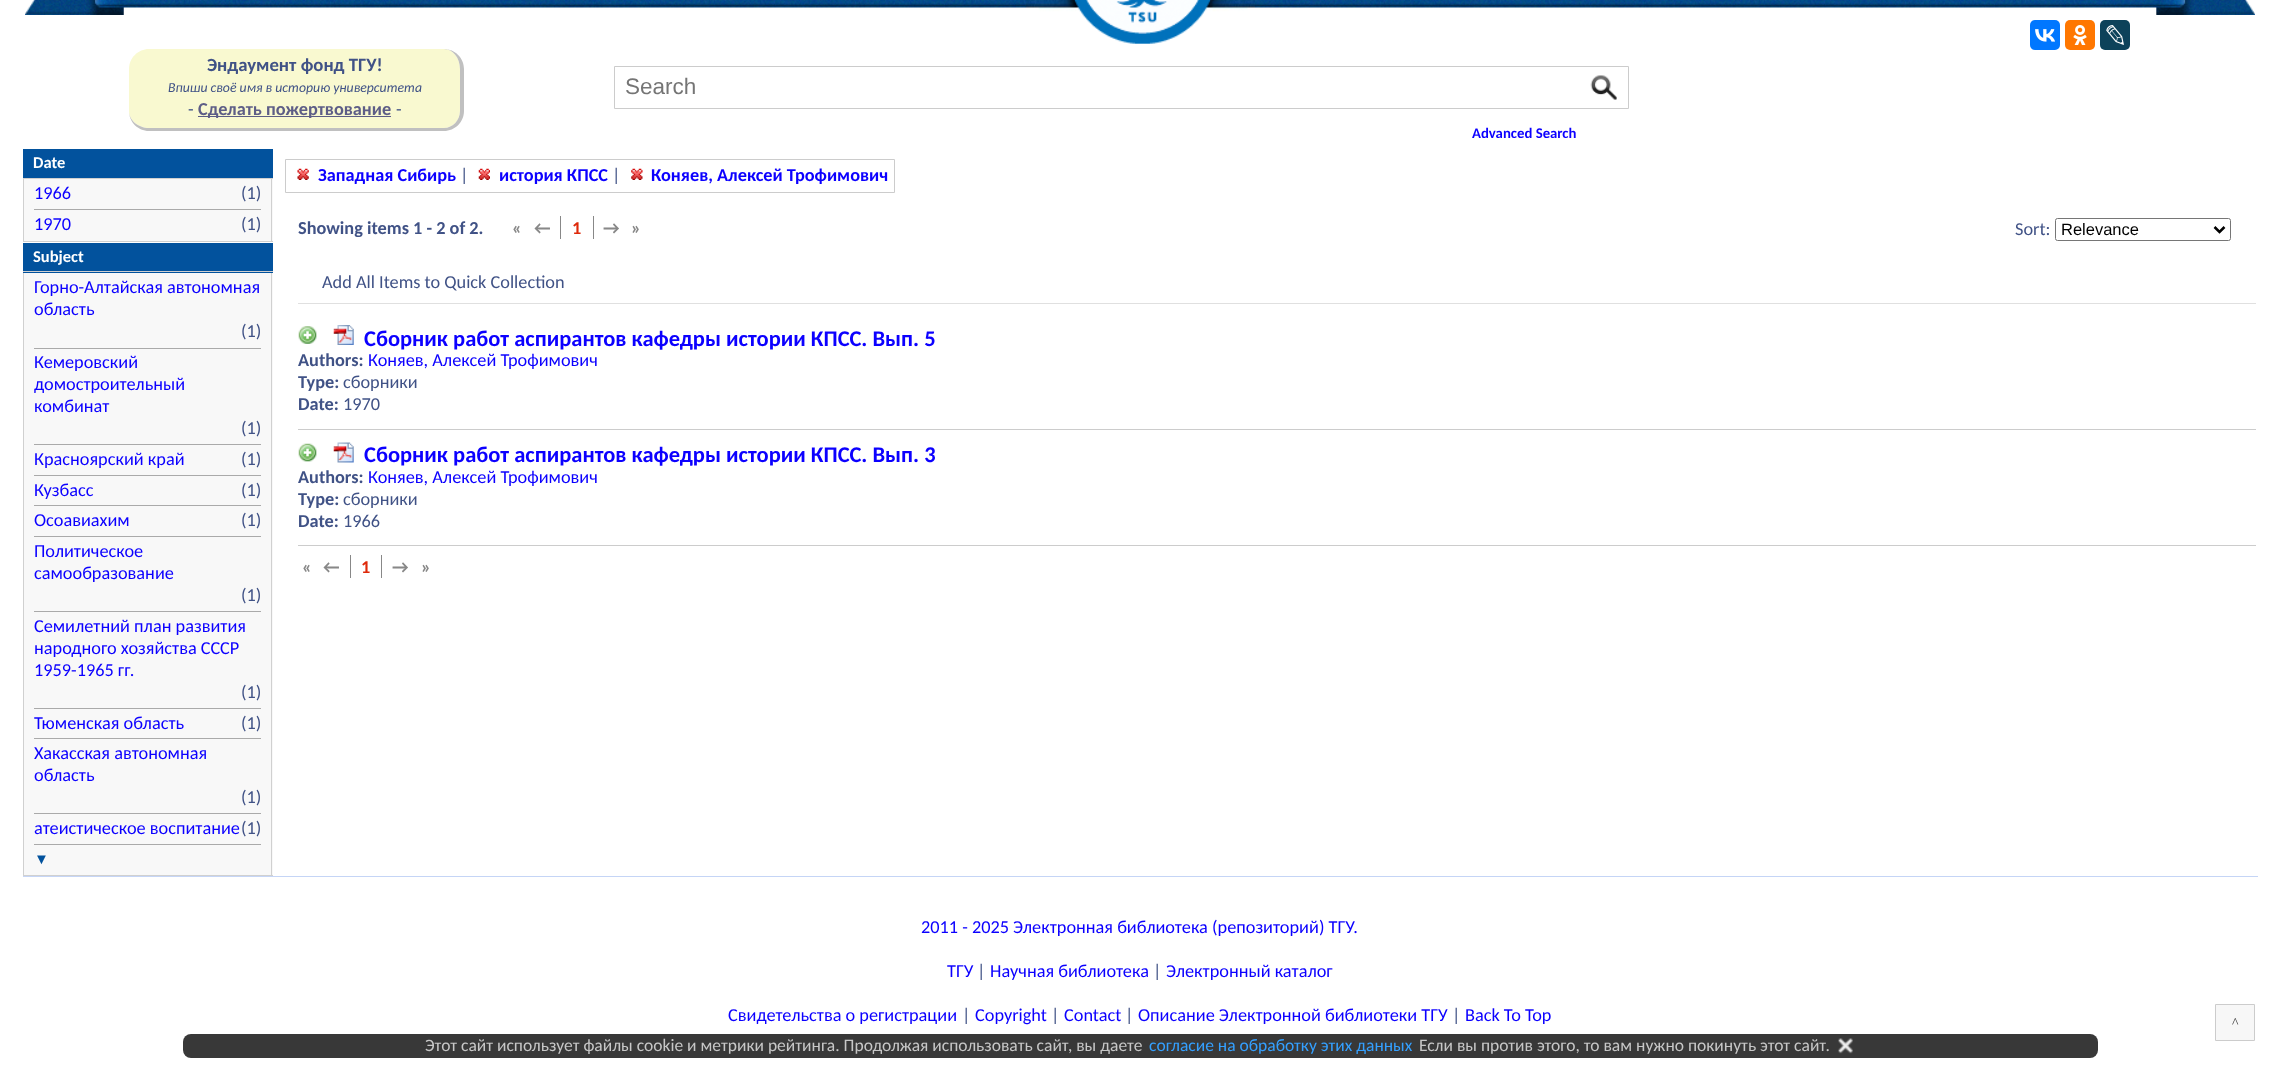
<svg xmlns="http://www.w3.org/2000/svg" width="2279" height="1066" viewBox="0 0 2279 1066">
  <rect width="100%" height="100%" fill="#fff"/>
  <image x="143" y="0" width="1994" height="8" href="img/2.png"/>
  <image x="25" y="0" width="119" height="15" href="img/1.png"/>
  <image x="1026" y="0" width="229" height="44" href="img/3.png"/>
  <image x="2136" y="0" width="119" height="15" href="img/4.png"/>
  <path d="M149 49H444C453 49 460 58 460 69V111C460 120 453 128 444 128H149C138 128 129 120 129 111V69C129 58 138 49 149 49Z" fill="#f9f9d0"/>
  <path d="M149 49H444C455 49 464 58 464 69V111C464 122 455 131 444 131H149C138 131 129 122 129 111V69C129 58 138 49 149 49ZM149 49H444C453 49 460 58 460 69V111C460 120 453 128 444 128H149C138 128 129 120 129 111V69C129 58 138 49 149 49Z" fill="#c0c0c0" fill-rule="evenodd"/>
  <path d="M198 116h193v1H198z" fill="#5d5d86"/>
  <path d="M614.5 66.5h1014v42H614.5z" fill="none" stroke="#ccc"/>
  <image x="1590" y="75" width="27" height="25" href="img/5.png"/>
  <path d="M23 241h250v1H23z" fill="#d0d0d0"/>
  <path d="M23 149h250v29H23z" fill="#02529d"/>
  <path d="M23 178h250v1H23z" fill="#d0d0d0"/>
  <path d="M24 179h249v62H24z" fill="#f8f8f8"/>
  <path d="M271 179h1v62H271z" fill="#d0d0d0"/>
  <path d="M23 179h1v62H23z" fill="#d0d0d0"/>
  <path d="M34 209h227v1H34z" fill="#aaa"/>
  <path d="M23 875h250v1H23z" fill="#d0d0d0"/>
  <path d="M23 243h250v30H23z" fill="#02529d"/>
  <path d="M23 271h250v1H23z" fill="#d0d0d0"/>
  <path d="M24 273h249v602H24z" fill="#f8f8f8"/>
  <path d="M271 273h1v602H271z" fill="#d0d0d0"/>
  <path d="M23 273h1v602H23z" fill="#d0d0d0"/>
  <path d="M34 348h227v1H34z" fill="#aaa"/>
  <path d="M34 444h227v1H34z" fill="#aaa"/>
  <path d="M34 475h227v1H34z" fill="#aaa"/>
  <path d="M34 505h227v1H34z" fill="#aaa"/>
  <path d="M34 536h227v1H34z" fill="#aaa"/>
  <path d="M34 611h227v1H34z" fill="#aaa"/>
  <path d="M34 708h227v1H34z" fill="#aaa"/>
  <path d="M34 738h227v1H34z" fill="#aaa"/>
  <path d="M34 813h227v1H34z" fill="#aaa"/>
  <path d="M34 844h227v1H34z" fill="#aaa"/>
  <path d="M285.5 159.5h609v33H285.5z" fill="none" stroke="#ccc"/>
  <image x="297" y="168" width="12" height="12" href="img/6.png"/>
  <image x="478" y="168" width="12" height="12" href="img/7.png"/>
  <image x="631" y="168" width="12" height="12" href="img/8.png"/>
  <rect x="2030" y="20" width="30" height="30" rx="5" fill="#07f"/>
  <image x="2035" y="29" width="20" height="13" href="img/9.png"/>
  <rect x="2065" y="20" width="30" height="30" rx="5" fill="#f70"/>
  <image x="2073" y="25" width="14" height="20" href="img/10.png"/>
  <rect x="2100" y="20" width="30" height="30" rx="5" fill="#0d425a"/>
  <image x="2106" y="25" width="18" height="20" href="img/11.png"/>
  <path d="M560 216h1v23H560z" fill="#888"/>
  <path d="M593 216h1v23H593z" fill="#888"/>
  <rect x="2055.5" y="218.5" width="175" height="22" rx="2" fill="none" stroke="#767676"/>
  <path d="M2214.5 227L2219.5 232L2224.5 227" fill="none" stroke="#000" stroke-width="2.5"/>
  <path d="M298 303h1958v1H298z" fill="#e0e0e0"/>
  <path d="M298 429h1958v1H298z" fill="#ccc"/>
  <image x="298" y="326" width="19" height="18" href="img/12.png"/>
  <image x="333" y="325" width="21" height="20" href="img/13.png"/>
  <path d="M298 545h1958v1H298z" fill="#ccc"/>
  <image x="298" y="443" width="19" height="19" href="img/14.png"/>
  <image x="333" y="442" width="21" height="21" href="img/15.png"/>
  <path d="M350 555h1v23H350z" fill="#888"/>
  <path d="M381 555h1v23H381z" fill="#888"/>
  <path d="M23 876h2235v1H23z" fill="#c5d5f6"/>
  <path d="M2215.5 1004.5h39v36H2215.5z" fill="#f7f7f7" stroke="#ccc"/>
  <rect x="183" y="1034" width="1915" height="24" rx="8" fill="#383838"/>
  <image x="1838" y="1038" width="15" height="16" href="img/16.png"/>
  <text x="207" y="71" font-family="Carlito" font-size="18.75" font-weight="bold" fill="#405286">Эндаумент фонд ТГУ!</text>
  <text x="168" y="92" font-family="Carlito" font-size="13.75" font-style="italic" fill="#405286">Впиши своё имя в историю университета</text>
  <text x="188" y="115" font-family="Carlito" font-size="18.3" fill="#405286">-</text>
  <text x="198" y="115" font-family="Carlito" font-size="18.3" font-weight="bold" fill="#5d5d86">Сделать пожертвование</text>
  <text x="396" y="115" font-family="Carlito" font-size="18.3" fill="#405286">-</text>
  <text x="625" y="94" font-family="Liberation Sans" font-size="22.5" fill="#757575">Search</text>
  <text x="1472" y="138" font-family="Carlito" font-size="14.75" font-weight="bold" fill="#0c00ff">Advanced Search</text>
  <text x="33" y="168" font-family="Carlito" font-size="16.5" font-weight="bold" fill="#fff">Date</text>
  <text x="34" y="199" font-family="Carlito" font-size="18.3" fill="#0c00ff">1966</text>
  <text x="241" y="199" font-family="Carlito" font-size="18.3" fill="#405286">(1)</text>
  <text x="34" y="230" font-family="Carlito" font-size="18.3" fill="#0c00ff">1970</text>
  <text x="241" y="230" font-family="Carlito" font-size="18.3" fill="#405286">(1)</text>
  <text x="33" y="262" font-family="Carlito" font-size="16.5" font-weight="bold" fill="#fff">Subject</text>
  <g font-family="Carlito" font-size="18.3" fill="#0c00ff">
    <text x="34" y="293">Горно-Алтайская автономная</text>
    <text x="34" y="315">область</text>
  </g>
  <text x="241" y="337" font-family="Carlito" font-size="18.3" fill="#405286">(1)</text>
  <g font-family="Carlito" font-size="18.3" fill="#0c00ff">
    <text x="34" y="368">Кемеровский</text>
    <text x="34" y="390">домостроительный</text>
    <text x="34" y="412">комбинат</text>
  </g>
  <text x="241" y="434" font-family="Carlito" font-size="18.3" fill="#405286">(1)</text>
  <text x="34" y="465" font-family="Carlito" font-size="18.3" fill="#0c00ff">Красноярский край</text>
  <text x="241" y="465" font-family="Carlito" font-size="18.3" fill="#405286">(1)</text>
  <text x="34" y="496" font-family="Carlito" font-size="18.3" fill="#0c00ff">Кузбасс</text>
  <text x="241" y="496" font-family="Carlito" font-size="18.3" fill="#405286">(1)</text>
  <text x="34" y="526" font-family="Carlito" font-size="18.3" fill="#0c00ff">Осоавиахим</text>
  <text x="241" y="526" font-family="Carlito" font-size="18.3" fill="#405286">(1)</text>
  <g font-family="Carlito" font-size="18.3" fill="#0c00ff">
    <text x="34" y="557">Политическое</text>
    <text x="34" y="579">самообразование</text>
  </g>
  <text x="241" y="601" font-family="Carlito" font-size="18.3" fill="#405286">(1)</text>
  <g font-family="Carlito" font-size="18.3" fill="#0c00ff">
    <text x="34" y="632">Семилетний план развития</text>
    <text x="34" y="654">народного хозяйства СССР</text>
    <text x="34" y="676">1959-1965 гг.</text>
  </g>
  <text x="241" y="698" font-family="Carlito" font-size="18.3" fill="#405286">(1)</text>
  <text x="34" y="729" font-family="Carlito" font-size="18.3" fill="#0c00ff">Тюменская область</text>
  <text x="241" y="729" font-family="Carlito" font-size="18.3" fill="#405286">(1)</text>
  <g font-family="Carlito" font-size="18.3" fill="#0c00ff">
    <text x="34" y="759">Хакасская автономная</text>
    <text x="34" y="781">область</text>
  </g>
  <text x="241" y="803" font-family="Carlito" font-size="18.3" fill="#405286">(1)</text>
  <text x="34" y="834" font-family="Carlito" font-size="18.3" fill="#0c00ff">атеистическое воспитание</text>
  <text x="241" y="834" font-family="Carlito" font-size="18.3" fill="#405286">(1)</text>
  <text x="34" y="864" font-family="Liberation Sans" font-size="15" font-weight="bold" fill="#02529d">▼</text>
  <text x="318" y="181" font-family="Carlito" font-size="18.3" font-weight="bold" fill="#0c00ff">Западная Сибирь</text>
  <text x="460" y="181" font-family="Carlito" font-size="18.3" fill="#405286">|</text>
  <text x="499" y="181" font-family="Carlito" font-size="18.3" font-weight="bold" fill="#0c00ff">история КПСС</text>
  <text x="612" y="181" font-family="Carlito" font-size="18.3" fill="#405286">|</text>
  <text x="651" y="181" font-family="Carlito" font-size="18.3" font-weight="bold" fill="#0c00ff">Коняев, Алексей Трофимович</text>
  <text x="298" y="234" font-family="Carlito" font-size="18.3" font-weight="bold" fill="#405286">Showing items 1 - 2 of 2.</text>
  <g font-family="Carlito" font-size="18.3" font-weight="bold" fill="#888">
    <text x="512" y="234">«</text>
    <text x="534" y="234">←</text>
  </g>
  <text x="572" y="234" font-family="Carlito" font-size="18.3" font-weight="bold" fill="#de290a">1</text>
  <g font-family="Carlito" font-size="18.3" font-weight="bold" fill="#888">
    <text x="603" y="234">→</text>
    <text x="631" y="234">»</text>
  </g>
  <text x="2015" y="235" font-family="Carlito" font-size="18.3" fill="#405286">Sort:</text>
  <text x="2061" y="235" font-family="Liberation Sans" font-size="16.5" fill="#000">Relevance</text>
  <text x="322" y="288" font-family="Carlito" font-size="18.3" fill="#405286">Add All Items to Quick Collection</text>
  <text x="364" y="346" font-family="Carlito" font-size="22.5" font-weight="bold" fill="#0c00ff">Сборник работ аспирантов кафедры истории КПСС. Вып. 5</text>
  <text x="298" y="366" font-family="Carlito" font-size="18.3" font-weight="bold" fill="#405286">Authors:</text>
  <text x="368" y="366" font-family="Carlito" font-size="18.3" fill="#0c00ff">Коняев, Алексей Трофимович</text>
  <text x="298" y="388" font-family="Carlito" font-size="18.3" font-weight="bold" fill="#405286">Type:</text>
  <text x="343" y="388" font-family="Carlito" font-size="18.3" fill="#405286">сборники</text>
  <text x="298" y="410" font-family="Carlito" font-size="18.3" font-weight="bold" fill="#405286">Date:</text>
  <text x="343" y="410" font-family="Carlito" font-size="18.3" fill="#405286">1970</text>
  <text x="364" y="462" font-family="Carlito" font-size="22.5" font-weight="bold" fill="#0c00ff">Сборник работ аспирантов кафедры истории КПСС. Вып. 3</text>
  <text x="298" y="483" font-family="Carlito" font-size="18.3" font-weight="bold" fill="#405286">Authors:</text>
  <text x="368" y="483" font-family="Carlito" font-size="18.3" fill="#0c00ff">Коняев, Алексей Трофимович</text>
  <text x="298" y="505" font-family="Carlito" font-size="18.3" font-weight="bold" fill="#405286">Type:</text>
  <text x="343" y="505" font-family="Carlito" font-size="18.3" fill="#405286">сборники</text>
  <text x="298" y="527" font-family="Carlito" font-size="18.3" font-weight="bold" fill="#405286">Date:</text>
  <text x="343" y="527" font-family="Carlito" font-size="18.3" fill="#405286">1966</text>
  <g font-family="Carlito" font-size="18.3" font-weight="bold" fill="#888">
    <text x="302" y="573">«</text>
    <text x="323" y="573">←</text>
  </g>
  <text x="361" y="573" font-family="Carlito" font-size="18.3" font-weight="bold" fill="#de290a">1</text>
  <g font-family="Carlito" font-size="18.3" font-weight="bold" fill="#888">
    <text x="392" y="573">→</text>
    <text x="421" y="573">»</text>
  </g>
  <g font-family="Carlito" font-size="18.3" fill="#0c00ff">
    <text x="921" y="933">2011 - 2025 Электронная библиотека (репозиторий) ТГУ.</text>
    <text x="947" y="977">ТГУ</text>
  </g>
  <text x="977" y="977" font-family="Carlito" font-size="18.3" fill="#405286">|</text>
  <text x="990" y="977" font-family="Carlito" font-size="18.3" fill="#0c00ff">Научная библиотека</text>
  <text x="1153" y="977" font-family="Carlito" font-size="18.3" fill="#405286">|</text>
  <g font-family="Carlito" font-size="18.3" fill="#0c00ff">
    <text x="1166" y="977">Электронный каталог</text>
    <text x="728" y="1021">Свидетельства о регистрации</text>
  </g>
  <text x="962" y="1021" font-family="Carlito" font-size="18.3" fill="#405286">|</text>
  <text x="975" y="1021" font-family="Carlito" font-size="18.3" fill="#0c00ff">Copyright</text>
  <text x="1051" y="1021" font-family="Carlito" font-size="18.3" fill="#405286">|</text>
  <text x="1064" y="1021" font-family="Carlito" font-size="18.3" fill="#0c00ff">Contact</text>
  <text x="1125" y="1021" font-family="Carlito" font-size="18.3" fill="#405286">|</text>
  <text x="1138" y="1021" font-family="Carlito" font-size="18.3" fill="#0c00ff">Описание Электронной библиотеки ТГУ</text>
  <text x="1452" y="1021" font-family="Carlito" font-size="18.3" fill="#405286">|</text>
  <text x="1465" y="1021" font-family="Carlito" font-size="18.3" fill="#0c00ff">Back To Top</text>
  <text x="2232" y="1027" font-family="Liberation Serif" font-size="13.75" fill="#333">^</text>
  <text x="425" y="1051" font-family="Carlito" font-size="17.5" fill="#c7c7c7">Этот сайт использует файлы cookie и метрики рейтинга. Продолжая использовать сайт, вы даете</text>
  <text x="1149" y="1051" font-family="Carlito" font-size="17.5" fill="#34a0ff">согласие на обработку этих данных</text>
  <text x="1419" y="1051" font-family="Carlito" font-size="17.5" fill="#c7c7c7">Если вы против этого, то вам нужно покинуть этот сайт.</text>
</svg>
